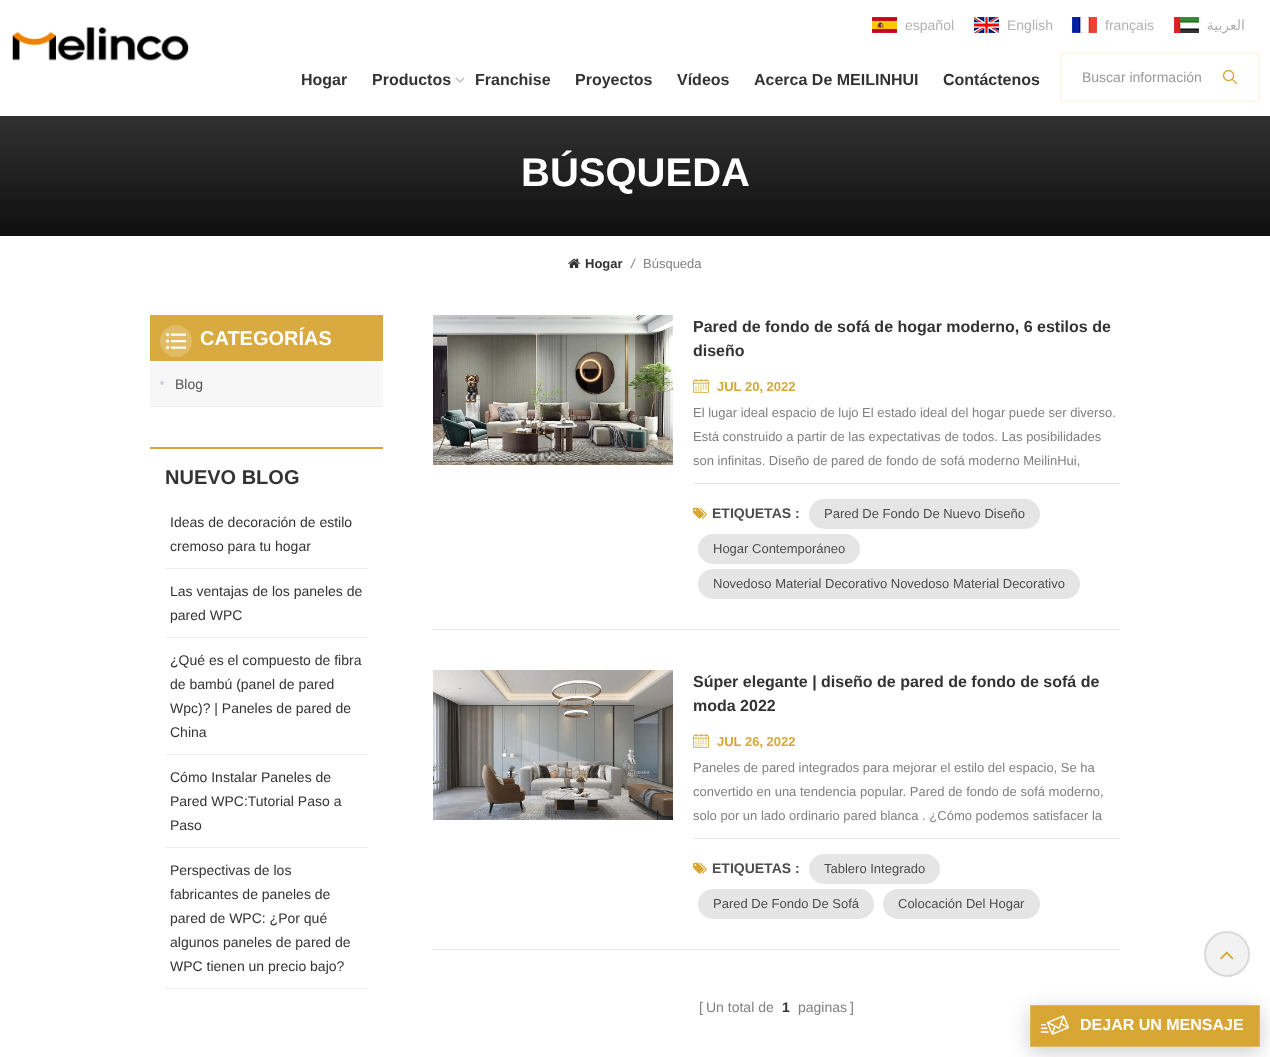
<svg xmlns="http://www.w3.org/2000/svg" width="1270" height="1057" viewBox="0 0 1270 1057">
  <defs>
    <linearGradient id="g1" gradientUnits="userSpaceOnUse" x1="635" y1="108" x2="635" y2="236"><stop offset="0" stop-color="#333"/><stop offset="1" stop-color="#0f0f0f"/></linearGradient>
  </defs>
  <rect width="100%" height="100%" fill="#fff"/>
  <image x="12" y="27" width="177" height="34" href="img/1.png"/>
  <image x="872" y="17" width="25" height="16" href="img/2.png"/>
  <image x="974" y="17" width="25" height="16" href="img/3.png"/>
  <image x="1072" y="17" width="25" height="16" href="img/4.png"/>
  <image x="1174" y="17" width="25" height="16" href="img/5.png"/>
  <path d="M456.5 77L460.5 81.5L459.5 83L455 78.5Z" fill="#ccc"/>
  <path d="M459 81.5L463.5 77L464.5 78.5L460.5 83Z" fill="#ccc"/>
  <path d="M1061 53h198v48H1061z" fill="none" stroke="#fbf6ea" stroke-width="2"/>
  <image x="1223" y="70" width="14" height="14" href="img/6.png"/>
  <path d="M0 116h1270v120H0z" fill="url(#g1)"/>
  <image x="568" y="258" width="12" height="10" href="img/7.png"/>
  <path d="M150 315h233v46H150z" fill="#d9aa3f"/>
  <circle cx="176" cy="341" r="16" fill="#e1bb65"/>
  <image x="166" y="333" width="20" height="16" href="img/8.png"/>
  <path d="M150 362h233v44H150z" fill="#f7f7f7"/>
  <path d="M150 406h233v1H150z" fill="#eee"/>
  <circle cx="162" cy="383" r="2" fill="#ced2d9"/>
  <path d="M150 447h233v2H150z" fill="#d7a635"/>
  <path d="M165 568h203v1H165z" fill="#eee"/>
  <path d="M165 637h203v1H165z" fill="#eee"/>
  <path d="M165 754h203v1H165z" fill="#eee"/>
  <path d="M165 847h203v1H165z" fill="#eee"/>
  <path d="M165 988h203v1H165z" fill="#eee"/>
  <path d="M433 629h687v1H433z" fill="#e5e5e5"/>
  <image x="433" y="315" width="240" height="150" href="img/9.png"/>
  <image x="693" y="379" width="16" height="14" href="img/10.png"/>
  <path d="M693 483h427v1H693z" fill="#e5e5e5"/>
  <image x="693" y="507" width="14" height="12" href="img/11.png"/>
  <rect x="809" y="499" width="231" height="30" rx="15" fill="#e5e5e5"/>
  <rect x="698" y="534" width="162" height="30" rx="15" fill="#e5e5e5"/>
  <rect x="698" y="569" width="382" height="30" rx="15" fill="#e5e5e5"/>
  <path d="M433 949h687v1H433z" fill="#e5e5e5"/>
  <image x="433" y="670" width="240" height="150" href="img/12.png"/>
  <image x="693" y="734" width="16" height="14" href="img/10.png"/>
  <path d="M693 838h427v1H693z" fill="#e5e5e5"/>
  <image x="693" y="862" width="14" height="12" href="img/11.png"/>
  <rect x="809" y="854" width="131" height="30" rx="15" fill="#e5e5e5"/>
  <rect x="698" y="889" width="176" height="30" rx="15" fill="#e5e5e5"/>
  <rect x="883" y="889" width="157" height="30" rx="15" fill="#e5e5e5"/>
  <circle cx="1227" cy="954" r="23" fill="#f2f2f2"/>
  <circle cx="1227" cy="954" r="22" fill="none" stroke="#0000001a" stroke-width="2"/>
  <image x="1220" y="951" width="14" height="9" href="img/13.png"/>
  <path d="M1030 1010h230v42H1030z" fill="#00000033" filter="blur(10px)"/>
  <path d="M1030.5 1005.5h229v41H1030.5z" fill="#d7a635" stroke="#dfb85d"/>
  <image x="1041" y="1015" width="28" height="20" href="img/14.png"/>
  <g font-family="Liberation Sans" font-size="14" fill="#b2b2b2">
    <text x="905" y="30">español</text>
    <text x="1007" y="30">English</text>
    <text x="1105" y="30">français</text>
  </g>
  <text x="1245" y="30" font-family="DejaVu Sans" font-size="14" direction="rtl" fill="#b2b2b2">العربية</text>
  <g font-family="Liberation Sans" font-size="16" font-weight="bold" fill="#333">
    <text x="301" y="85">Hogar</text>
    <text x="372" y="85">Productos</text>
    <text x="475" y="85">Franchise</text>
    <text x="575" y="85">Proyectos</text>
    <text x="677" y="85">Vídeos</text>
    <text x="754" y="85">Acerca De MEILINHUI</text>
    <text x="943" y="85">Contáctenos</text>
  </g>
  <text x="1082" y="82" font-family="Liberation Sans" font-size="14" fill="#999">Buscar información</text>
  <text x="521" y="186" font-family="Liberation Sans" font-size="40" font-weight="bold" fill="#fff">BÚSQUEDA</text>
  <text x="585" y="268" font-family="Liberation Sans" font-size="13" font-weight="bold" fill="#333">Hogar</text>
  <text x="631" y="268" font-family="Liberation Sans" font-size="13" font-style="italic" fill="#808080">/</text>
  <text x="643" y="268" font-family="Liberation Sans" font-size="13" fill="#808080">Búsqueda</text>
  <text x="200" y="345" font-family="Liberation Sans" font-size="20" font-weight="bold" fill="#fff">CATEGORÍAS</text>
  <text x="175" y="389" font-family="Liberation Sans" font-size="14" fill="#555">Blog</text>
  <text x="165" y="484" font-family="Liberation Sans" font-size="20" font-weight="bold" fill="#333">NUEVO BLOG</text>
  <g font-family="Liberation Sans" font-size="14" fill="#333">
    <text x="170" y="527">Ideas de decoración de estilo</text>
    <text x="170" y="551">cremoso para tu hogar</text>
    <text x="170" y="596">Las ventajas de los paneles de</text>
    <text x="170" y="620">pared WPC</text>
    <text x="170" y="665">¿Qué es el compuesto de fibra</text>
    <text x="170" y="689">de bambú (panel de pared</text>
    <text x="170" y="713">Wpc)? | Paneles de pared de</text>
    <text x="170" y="737">China</text>
    <text x="170" y="782">Cómo Instalar Paneles de</text>
    <text x="170" y="806">Pared WPC:Tutorial Paso a</text>
    <text x="170" y="830">Paso</text>
    <text x="170" y="875">Perspectivas de los</text>
    <text x="170" y="899">fabricantes de paneles de</text>
    <text x="170" y="923">pared de WPC: ¿Por qué</text>
    <text x="170" y="947">algunos paneles de pared de</text>
    <text x="170" y="971">WPC tienen un precio bajo?</text>
  </g>
  <g font-family="Liberation Sans" font-size="16" font-weight="bold" fill="#333">
    <text x="693" y="332">Pared de fondo de sofá de hogar moderno, 6 estilos de</text>
    <text x="693" y="356">diseño</text>
  </g>
  <text x="717" y="391" font-family="Liberation Sans" font-size="13" font-weight="bold" fill="#d7a635">JUL 20, 2022</text>
  <g font-family="Liberation Sans" font-size="13" fill="#808080">
    <text x="693" y="417">El lugar ideal espacio de lujo El estado ideal del hogar puede ser diverso.</text>
    <text x="693" y="441">Está construido a partir de las expectativas de todos. Las posibilidades</text>
    <text x="693" y="465">son infinitas. Diseño de pared de fondo de sofá moderno MeilinHui,</text>
  </g>
  <text x="712" y="518" font-family="Liberation Sans" font-size="14" font-weight="bold" fill="#4d4d4d">ETIQUETAS :</text>
  <g font-family="Liberation Sans" font-size="13" fill="#4d4d4d">
    <text x="824" y="518">Pared De Fondo De Nuevo Diseño</text>
    <text x="713" y="553">Hogar Contemporáneo</text>
    <text x="713" y="588">Novedoso Material Decorativo Novedoso Material Decorativo</text>
  </g>
  <g font-family="Liberation Sans" font-size="16" font-weight="bold" fill="#333">
    <text x="693" y="687">Súper elegante | diseño de pared de fondo de sofá de</text>
    <text x="693" y="711">moda 2022</text>
  </g>
  <text x="717" y="746" font-family="Liberation Sans" font-size="13" font-weight="bold" fill="#d7a635">JUL 26, 2022</text>
  <g font-family="Liberation Sans" font-size="13" fill="#808080">
    <text x="693" y="772">Paneles de pared integrados para mejorar el estilo del espacio, Se ha</text>
    <text x="693" y="796">convertido en una tendencia popular. Pared de fondo de sofá moderno,</text>
    <text x="693" y="820">solo por un lado ordinario pared blanca . ¿Cómo podemos satisfacer la</text>
  </g>
  <text x="712" y="873" font-family="Liberation Sans" font-size="14" font-weight="bold" fill="#4d4d4d">ETIQUETAS :</text>
  <g font-family="Liberation Sans" font-size="13" fill="#4d4d4d">
    <text x="824" y="873">Tablero Integrado</text>
    <text x="713" y="908">Pared De Fondo De Sofá</text>
    <text x="898" y="908">Colocación Del Hogar</text>
  </g>
  <g font-family="Liberation Sans" font-size="14" fill="#808080">
    <text x="699" y="1012">[</text>
    <text x="706" y="1012">Un total de</text>
  </g>
  <text x="782" y="1012" font-family="Liberation Sans" font-size="14" font-weight="bold" letter-spacing="-1" fill="#333">1</text>
  <g font-family="Liberation Sans" font-size="14" fill="#808080">
    <text x="798" y="1012">paginas</text>
    <text x="850" y="1012">]</text>
  </g>
  <text x="1080" y="1030" font-family="Liberation Sans" font-size="16" font-weight="bold" fill="#fff">DEJAR UN MENSAJE</text>
</svg>
